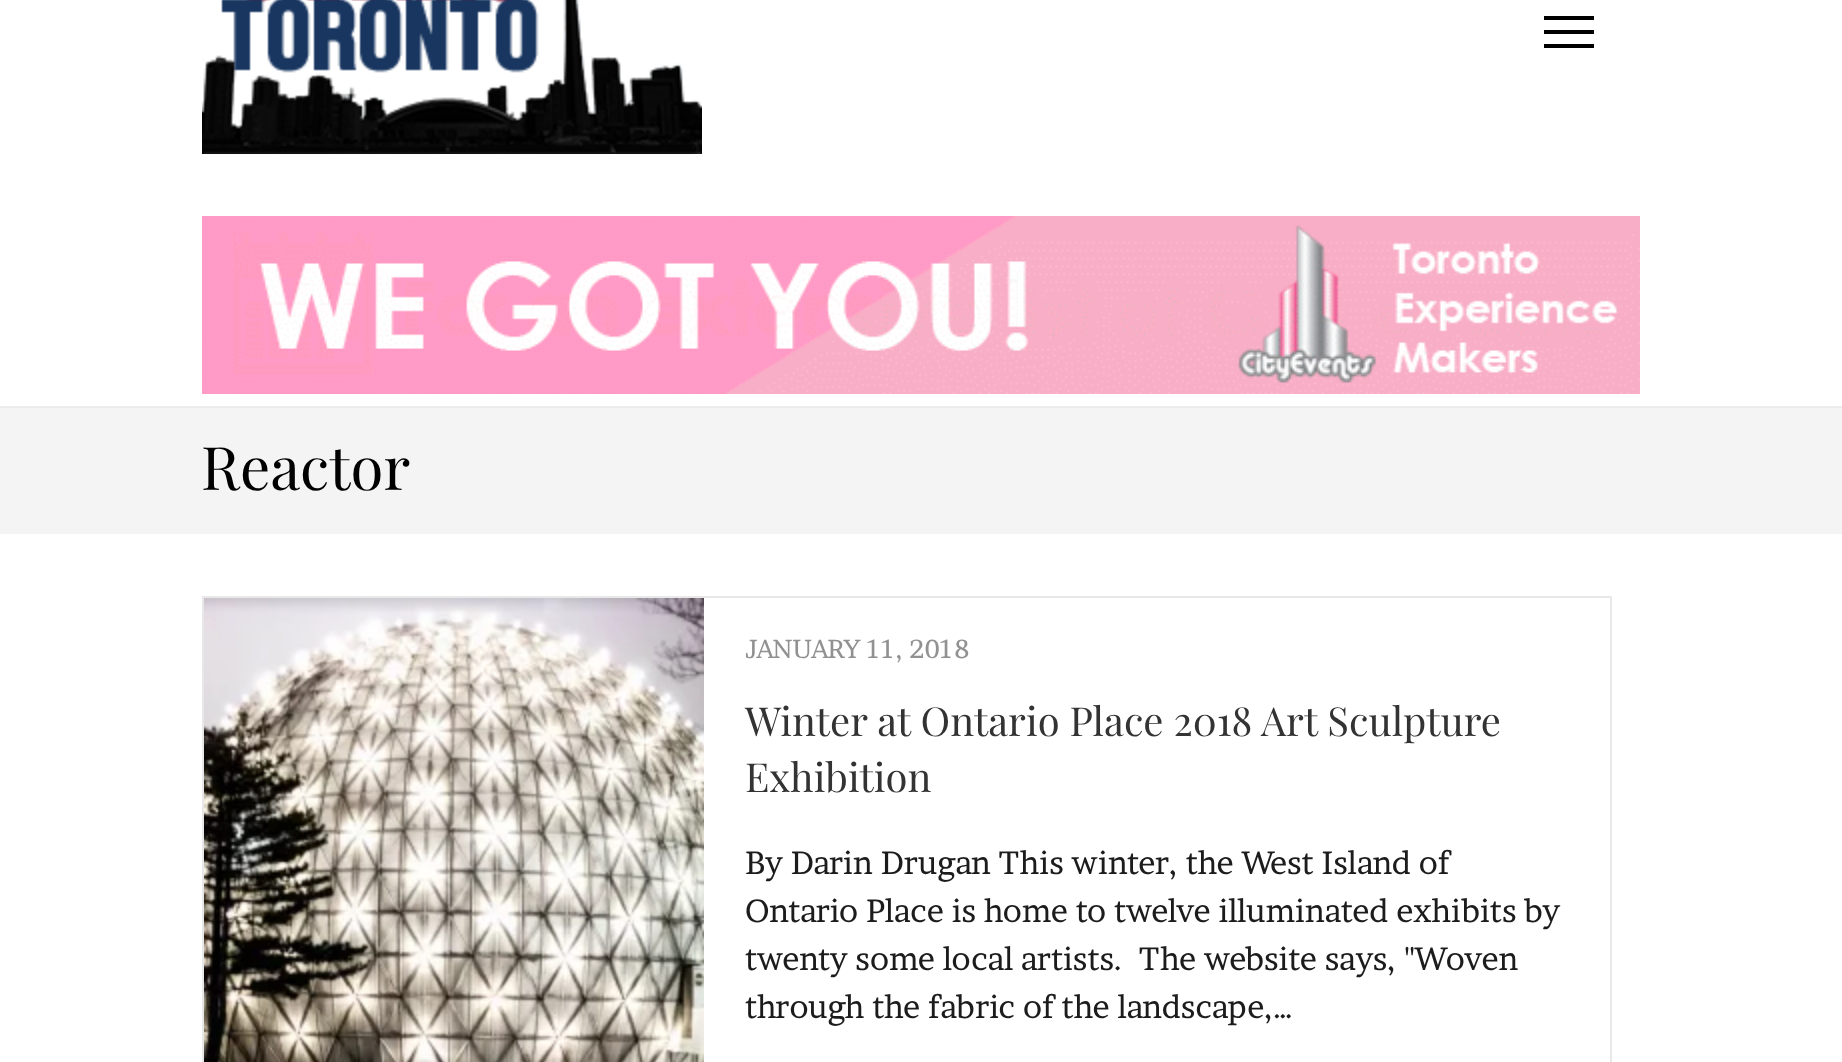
<svg xmlns="http://www.w3.org/2000/svg" width="1842" height="1062" viewBox="0 0 1842 1062">
  <defs>
    <clipPath id="clip1"><path d="M746 624h824v48H746z"/></clipPath>
  </defs>
  <rect width="100%" height="100%" fill="#fff"/>
  <image x="202" y="0" width="500" height="154" href="img/1.png"/>
  <path d="M1544 16h50v4H1544z" fill="#000"/>
  <path d="M1544 30h50v4H1544z" fill="#000"/>
  <path d="M1544 44h50v4H1544z" fill="#000"/>
  <image x="202" y="216" width="1438" height="178" href="img/2.png"/>
  <path d="M0 408h1842v126H0z" fill="#f4f4f4"/>
  <path d="M0 406h1842v2H0z" fill="#ebebeb"/>
  <path d="M203 597h1408v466H203z" fill="none" stroke="#e8e8e8" stroke-width="2"/>
  <image x="204" y="598" width="500" height="464" href="img/3.png"/>
  <text x="201" y="490" font-family="Playfair Display" font-size="60" fill="#000">Reactor</text>
  <g clip-path="url(#clip1)">
    <text x="745" y="658" font-family="Brawler" font-size="26" fill="#919191">JANUARY 11, 2018</text>
  </g>
  <g font-family="Playfair Display" font-size="40" fill="#333">
    <text x="745" y="736">Winter at Ontario Place 2018 Art Sculpture</text>
    <text x="745" y="792">Exhibition</text>
  </g>
  <g font-family="Brawler" font-size="32" fill="#1c1c1c">
    <text x="745" y="874">By Darin Drugan This winter, the West Island of</text>
    <text x="745" y="922">Ontario Place is home to twelve illuminated exhibits by</text>
    <text x="745" y="970" xml:space="preserve">twenty some local artists.  The website says, "Woven</text>
    <text x="745" y="1018">through the fabric of the landscape,…</text>
  </g>
</svg>
